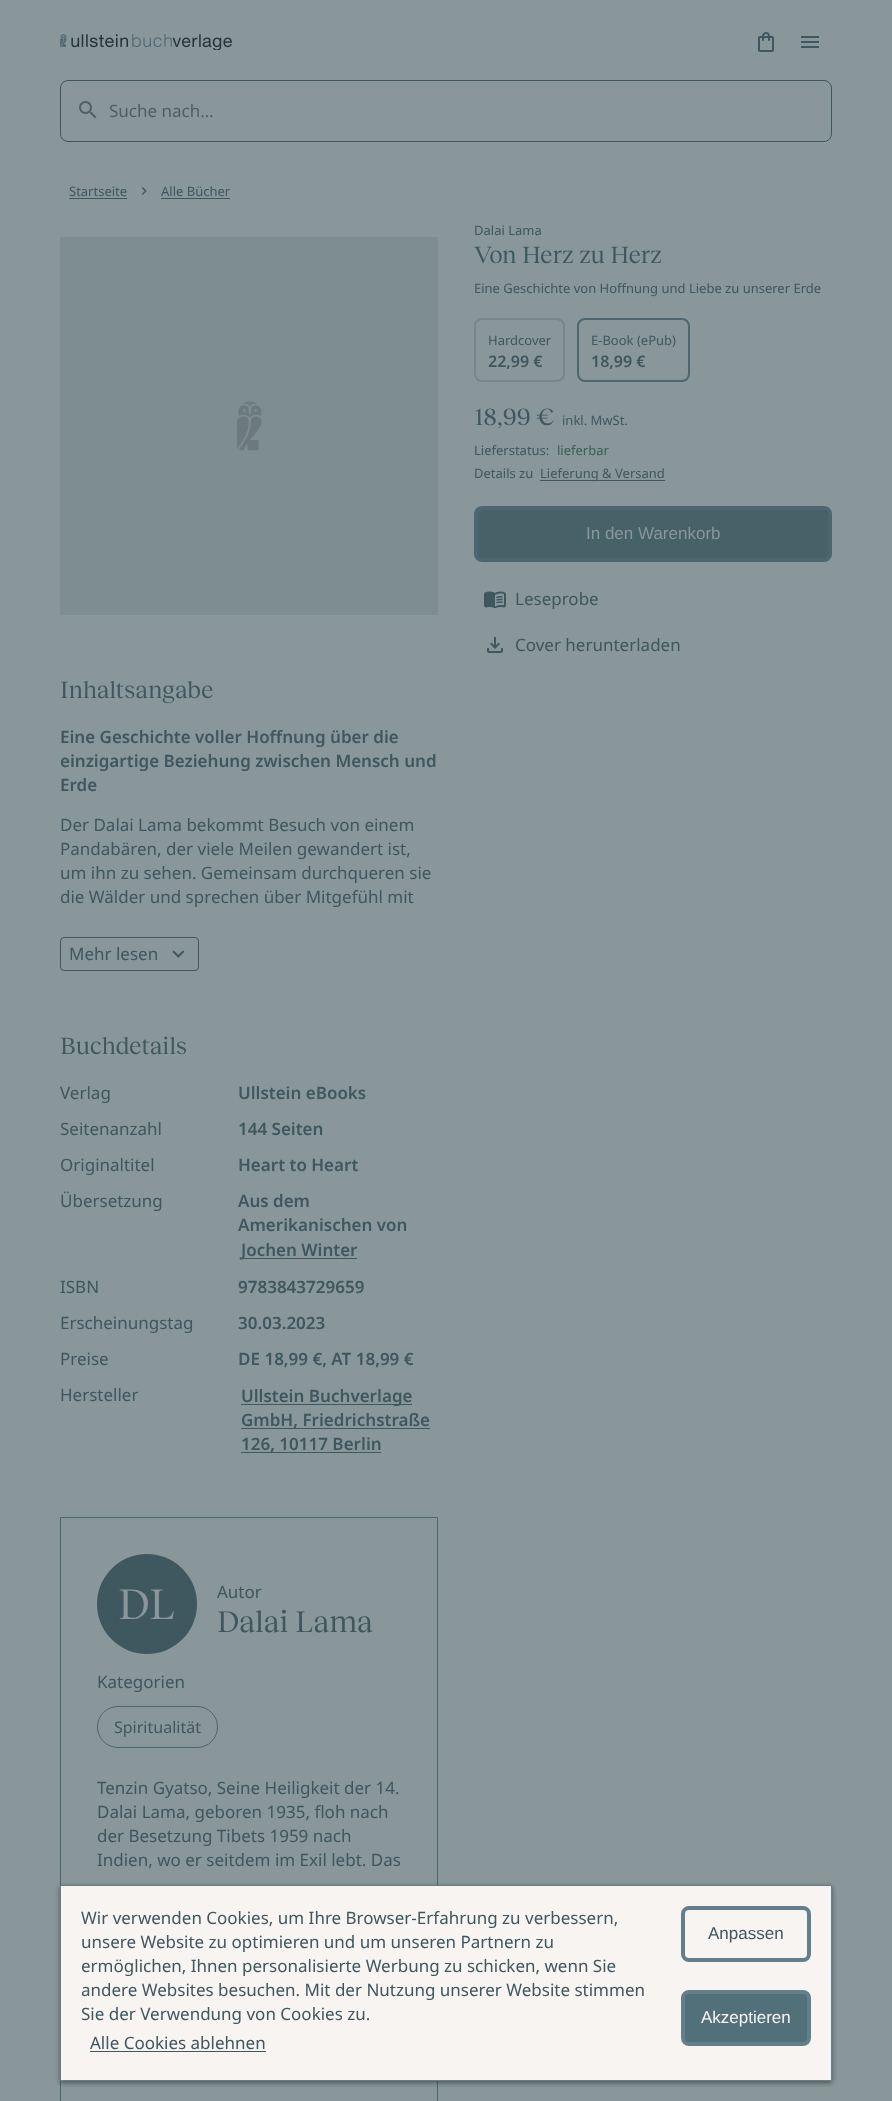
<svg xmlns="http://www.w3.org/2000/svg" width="892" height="2101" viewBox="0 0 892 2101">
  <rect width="100%" height="100%" fill="#89969a"/>
  <image x="60" y="34" width="172" height="16" href="img/1.png"/>
  <image x="758" y="32" width="16" height="20" href="img/2.png"/>
  <image x="801" y="36" width="18" height="12" href="img/3.png"/>
  <rect x="60.5" y="80.5" width="771" height="61" rx="7.5" fill="none" stroke="#3f575f"/>
  <image x="79" y="101" width="18" height="18" href="img/4.png"/>
  <path d="M69 198h58v1H69z" fill="#3f575f"/>
  <image x="141" y="187" width="6" height="8" href="img/5.png"/>
  <path d="M161 198h69v1H161z" fill="#3f575f"/>
  <path d="M60 237h378v378H60z" fill="#7e8d91"/>
  <image x="237" y="401" width="25" height="50" href="img/6.png"/>
  <rect x="475" y="319" width="89" height="62" rx="7" fill="none" stroke="#75868c" stroke-width="2"/>
  <rect x="578" y="319" width="111" height="62" rx="7" fill="none" stroke="#4d6770" stroke-width="2"/>
  <path d="M540 480h125v1H540z" fill="#3f575f"/>
  <rect x="476" y="508" width="354" height="52" rx="6" fill="#476169" stroke="#4d6770" stroke-width="4"/>
  <image x="484" y="591" width="22" height="18" href="img/7.png"/>
  <image x="487" y="637" width="16" height="16" href="img/8.png"/>
  <rect x="60.5" y="937.5" width="138" height="33" rx="3.5" fill="none" stroke="#3f575f"/>
  <image x="172" y="950" width="13" height="8" href="img/9.png"/>
  <path d="M241 1258h116v1H241z" fill="#3f575f"/>
  <path d="M241 1404h171v1H241z" fill="#3f575f"/>
  <path d="M241 1428h189v1H241z" fill="#3f575f"/>
  <path d="M241 1452h140v1H241z" fill="#3f575f"/>
  <path d="M60.5 1517.5h377v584H60.5z" fill="none" stroke="#4d6770"/>
  <circle cx="147" cy="1604" r="50" fill="#3f575f"/>
  <rect x="97.5" y="1706.5" width="120" height="41" rx="20.5" fill="none" stroke="#4d6770"/>
  <path d="M60 1886h772v196H60z" fill="#00000033" filter="blur(2.5px)"/>
  <path d="M60 1888h772v196H60z" fill="#0000001f" filter="blur(2px)"/>
  <path d="M60 1887h772v196H60z" fill="#00000024" filter="blur(2px)"/>
  <path d="M60.5 1885.5h771v195H60.5z" fill="#f8f4f2" stroke="#628089"/>
  <path d="M90 2051h176v1H90z" fill="#3f575f"/>
  <rect x="683" y="1908" width="126" height="52" rx="6" fill="none" stroke="#628089" stroke-width="4"/>
  <rect x="683" y="1992" width="126" height="52" rx="6" fill="#527079" stroke="#628089" stroke-width="4"/>
  <text x="109" y="117" font-family="Noto Sans" font-size="17" fill="#515f64">Suche nach…</text>
  <g font-family="Noto Sans" font-size="13" fill="#3f575f">
    <text x="69" y="196">Startseite</text>
    <text x="161" y="196">Alle Bücher</text>
    <text x="474" y="235">Dalai Lama</text>
  </g>
  <text x="474" y="263" font-family="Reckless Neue" font-size="24.25" fill="#3f575f">Von Herz zu Herz</text>
  <g font-family="Noto Sans" font-size="13" fill="#3f575f">
    <text x="474" y="293">Eine Geschichte von Hoffnung und Liebe zu unserer Erde</text>
    <text x="488" y="345">Hardcover</text>
  </g>
  <text x="488" y="367" font-family="Noto Sans" font-size="16" font-weight="600" fill="#3f575f">22,99 €</text>
  <text x="591" y="345" font-family="Noto Sans" font-size="13" fill="#3f575f">E-Book (ePub)</text>
  <text x="591" y="367" font-family="Noto Sans" font-size="16" font-weight="600" fill="#3f575f">18,99 €</text>
  <text x="474" y="425" font-family="Reckless Neue" font-size="24.25" fill="#3f575f">18,99 €</text>
  <g font-family="Noto Sans" font-size="13" fill="#3f575f">
    <text x="562" y="425">inkl. MwSt.</text>
    <text x="474" y="455">Lieferstatus:</text>
  </g>
  <text x="557" y="455" font-family="Noto Sans" font-size="13" fill="#396053">lieferbar</text>
  <g font-family="Noto Sans" font-size="13" fill="#3f575f">
    <text x="474" y="478">Details zu</text>
    <text x="540" y="478">Lieferung &amp; Versand</text>
  </g>
  <text x="586" y="539" font-family="Liberation Sans" font-size="17" fill="#89969a">In den Warenkorb</text>
  <g font-family="Noto Sans" font-size="17" fill="#3f575f">
    <text x="515" y="605">Leseprobe</text>
    <text x="515" y="651">Cover herunterladen</text>
  </g>
  <text x="60" y="698" font-family="Reckless Neue" font-size="24.25" fill="#3f575f">Inhaltsangabe</text>
  <g font-family="Noto Sans" font-size="17" font-weight="600" fill="#3f575f">
    <text x="60" y="743">Eine Geschichte voller Hoffnung über die</text>
    <text x="60" y="767">einzigartige Beziehung zwischen Mensch und</text>
    <text x="60" y="791">Erde</text>
  </g>
  <g font-family="Noto Sans" font-size="17" fill="#3f575f">
    <text x="60" y="831">Der Dalai Lama bekommt Besuch von einem</text>
    <text x="60" y="855">Pandabären, der viele Meilen gewandert ist,</text>
    <text x="60" y="879">um ihn zu sehen. Gemeinsam durchqueren sie</text>
    <text x="60" y="903">die Wälder und sprechen über Mitgefühl mit</text>
    <text x="69" y="960">Mehr lesen</text>
  </g>
  <text x="60" y="1054" font-family="Reckless Neue" font-size="24.25" fill="#3f575f">Buchdetails</text>
  <text x="60" y="1099" font-family="Noto Sans" font-size="17" fill="#3f575f">Verlag</text>
  <text x="238" y="1099" font-family="Noto Sans" font-size="17" font-weight="600" fill="#3f575f">Ullstein eBooks</text>
  <text x="60" y="1135" font-family="Noto Sans" font-size="17" fill="#3f575f">Seitenanzahl</text>
  <text x="238" y="1135" font-family="Noto Sans" font-size="17" font-weight="600" fill="#3f575f">144 Seiten</text>
  <text x="60" y="1171" font-family="Noto Sans" font-size="17" fill="#3f575f">Originaltitel</text>
  <text x="238" y="1171" font-family="Noto Sans" font-size="17" font-weight="600" fill="#3f575f">Heart to Heart</text>
  <text x="60" y="1207" font-family="Noto Sans" font-size="17" fill="#3f575f">Übersetzung</text>
  <g font-family="Noto Sans" font-size="17" font-weight="600" fill="#3f575f">
    <text x="238" y="1207">Aus dem</text>
    <text x="238" y="1231">Amerikanischen von</text>
    <text x="241" y="1256">Jochen Winter</text>
  </g>
  <text x="60" y="1293" font-family="Noto Sans" font-size="17" fill="#3f575f">ISBN</text>
  <text x="238" y="1293" font-family="Noto Sans" font-size="17" font-weight="600" fill="#3f575f">9783843729659</text>
  <text x="60" y="1329" font-family="Noto Sans" font-size="17" fill="#3f575f">Erscheinungstag</text>
  <text x="238" y="1329" font-family="Noto Sans" font-size="17" font-weight="600" fill="#3f575f">30.03.2023</text>
  <text x="60" y="1365" font-family="Noto Sans" font-size="17" fill="#3f575f">Preise</text>
  <text x="238" y="1365" font-family="Noto Sans" font-size="17" font-weight="600" fill="#3f575f">DE 18,99 €, AT 18,99 €</text>
  <text x="60" y="1401" font-family="Noto Sans" font-size="17" fill="#3f575f">Hersteller</text>
  <g font-family="Noto Sans" font-size="17" font-weight="600" fill="#3f575f">
    <text x="241" y="1402">Ullstein Buchverlage</text>
    <text x="241" y="1426">GmbH, Friedrichstraße</text>
    <text x="241" y="1450">126, 10117 Berlin</text>
  </g>
  <text x="118" y="1619" font-family="Reckless Neue" font-size="44" fill="#89969a">DL</text>
  <text x="217" y="1598" font-family="Noto Sans" font-size="17" fill="#3f575f">Autor</text>
  <text x="217" y="1632" font-family="Reckless Neue" font-size="30.75" fill="#3f575f">Dalai Lama</text>
  <text x="97" y="1688" font-family="Noto Sans" font-size="17" fill="#3f575f">Kategorien</text>
  <text x="114" y="1733" font-family="Noto Sans" font-size="16" fill="#3f575f">Spiritualität</text>
  <g font-family="Noto Sans" font-size="17" fill="#3f575f">
    <text x="97" y="1794">Tenzin Gyatso, Seine Heiligkeit der 14.</text>
    <text x="97" y="1818">Dalai Lama, geboren 1935, floh nach</text>
    <text x="97" y="1842">der Besetzung Tibets 1959 nach</text>
    <text x="97" y="1866">Indien, wo er seitdem im Exil lebt. Das</text>
    <text x="81" y="1924">Wir verwenden Cookies, um Ihre Browser-Erfahrung zu verbessern,</text>
    <text x="81" y="1948">unsere Website zu optimieren und um unseren Partnern zu</text>
    <text x="81" y="1972">ermöglichen, Ihnen personalisierte Werbung zu schicken, wenn Sie</text>
    <text x="81" y="1996">andere Websites besuchen. Mit der Nutzung unserer Website stimmen</text>
    <text x="81" y="2020">Sie der Verwendung von Cookies zu.</text>
    <text x="90" y="2049">Alle Cookies ablehnen</text>
  </g>
  <text x="708" y="1939" font-family="Liberation Sans" font-size="17" fill="#3f575f">Anpassen</text>
  <text x="701" y="2023" font-family="Liberation Sans" font-size="17" fill="#f8f4f2">Akzeptieren</text>
</svg>
